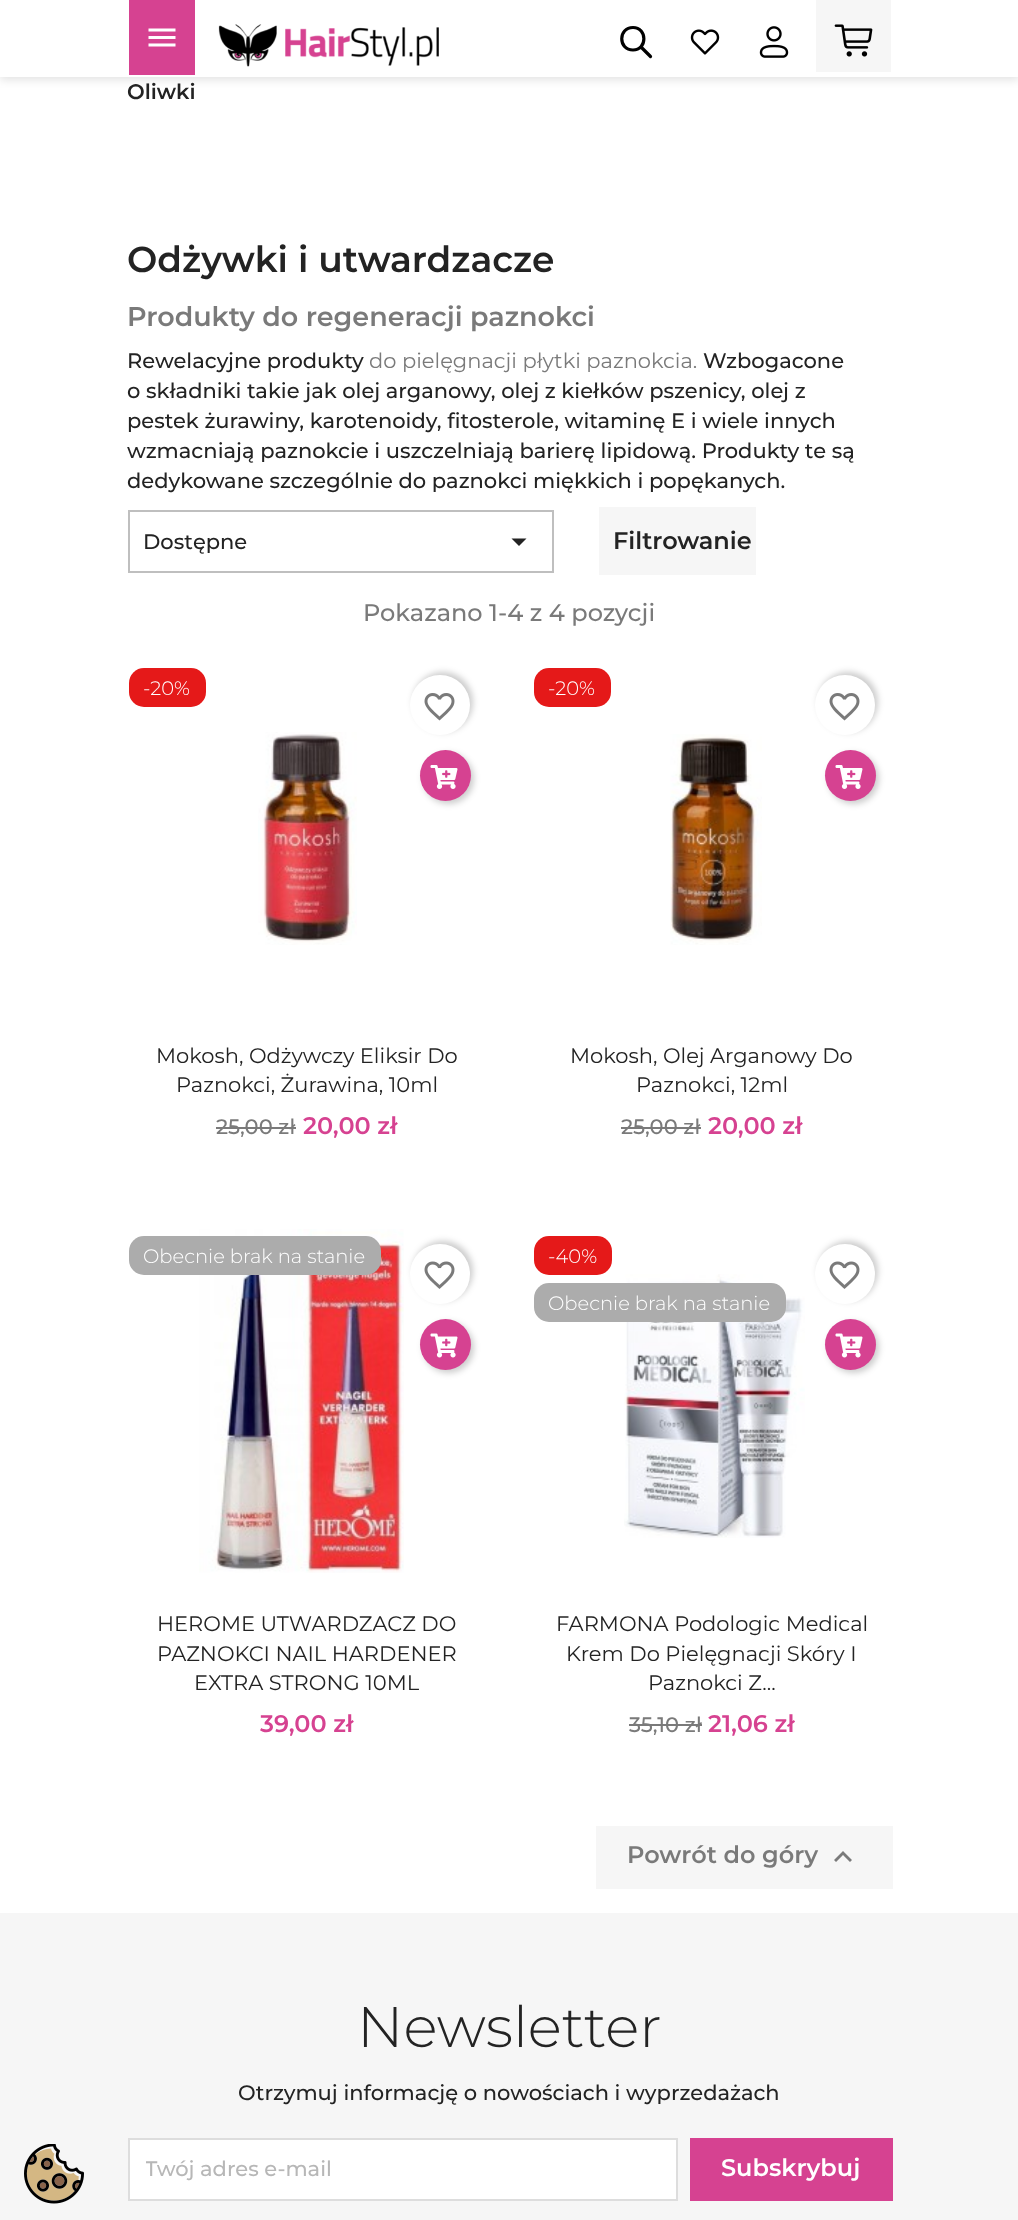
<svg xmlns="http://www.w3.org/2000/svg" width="1018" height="2220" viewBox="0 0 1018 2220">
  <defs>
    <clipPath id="clip1"><path d="M146 2156h514v27H146z"/></clipPath>
  </defs>
  <rect width="100%" height="100%" fill="#fff"/>
  <path d="M0 1913h1018v307H0z" fill="#f6f6f6"/>
  <image x="24" y="2144" width="60" height="60" href="img/1.png"/>
  <path d="M0 3h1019v77H0z" fill="#0000001c" filter="blur(4px)"/>
  <path d="M0 0h1018v77H0z" fill="#fff"/>
  <path d="M129 0h66v75H129z" fill="#d64291"/>
  <image x="148" y="28" width="28" height="19" href="img/2.png"/>
  <image x="218" y="24" width="221" height="43" href="img/3.png"/>
  <path d="M641 47L650.5 56.5M633 50C618 50 618 27.5 633 27.5C647.5 27.5 647.5 50 633 50Z" fill="none" stroke="#000" stroke-width="3.2" stroke-linecap="round" stroke-linejoin="round"/>
  <image x="690" y="29" width="30" height="26" href="img/4.png"/>
  <image x="759" y="26" width="30" height="32" href="img/5.png"/>
  <path d="M816 0h75v72H816z" fill="#f6f6f6"/>
  <image x="834" y="24" width="39" height="33" href="img/6.png"/>
  <path d="M129 511h424v61H129z" fill="none" stroke="#bfbfbf" stroke-width="2"/>
  <path d="M511.5 538.5H526.5L519 546Z" fill="#232323"/>
  <path d="M599 507h157v68H599z" fill="#f6f6f6"/>
  <rect x="129" y="668" width="77" height="39" rx="15" fill="#e51919"/>
  <rect x="413" y="672" width="60" height="60" rx="30" fill="#00000033" filter="blur(3px)"/>
  <circle cx="440" cy="705" r="30" fill="#fff"/>
  <image x="424" y="693" width="31" height="28" href="img/7.png"/>
  <image x="258" y="732" width="99" height="213" href="img/8.png"/>
  <rect x="423" y="753" width="51" height="51" rx="25.5" fill="#00000033" filter="blur(3px)"/>
  <circle cx="445.5" cy="775.5" r="25.5" fill="#d64291"/>
  <image x="430" y="765" width="28" height="24" href="img/9.png"/>
  <path d="M216 1127h80v2H216z" fill="#7a7a7a"/>
  <rect x="534" y="668" width="77" height="39" rx="15" fill="#e51919"/>
  <rect x="818" y="672" width="60" height="60" rx="30" fill="#00000033" filter="blur(3px)"/>
  <circle cx="845" cy="705" r="30" fill="#fff"/>
  <image x="829" y="693" width="31" height="28" href="img/7.png"/>
  <image x="670" y="734" width="92" height="211" href="img/10.png"/>
  <rect x="828" y="753" width="51" height="51" rx="25.5" fill="#00000033" filter="blur(3px)"/>
  <circle cx="850.5" cy="775.5" r="25.5" fill="#d64291"/>
  <image x="835" y="765" width="28" height="24" href="img/9.png"/>
  <path d="M621 1127h80v2H621z" fill="#7a7a7a"/>
  <image x="199" y="1229" width="205" height="344" href="img/11.png"/>
  <rect x="413" y="1241" width="60" height="60" rx="30" fill="#00000033" filter="blur(3px)"/>
  <circle cx="440" cy="1274" r="30" fill="#fff"/>
  <image x="424" y="1261" width="31" height="28" href="img/12.png"/>
  <rect x="129" y="1236" width="252" height="39" rx="15" fill="#acacac"/>
  <rect x="423" y="1322" width="51" height="51" rx="25.5" fill="#00000033" filter="blur(3px)"/>
  <circle cx="445.5" cy="1344.5" r="25.5" fill="#d64291"/>
  <image x="430" y="1333" width="28" height="25" href="img/13.png"/>
  <rect x="534" y="1236" width="78" height="39" rx="15" fill="#e51919"/>
  <image x="624" y="1274" width="181" height="264" href="img/14.png"/>
  <rect x="534" y="1283" width="252" height="39" rx="15" fill="#acacac"/>
  <rect x="818" y="1241" width="60" height="60" rx="30" fill="#00000033" filter="blur(3px)"/>
  <circle cx="845" cy="1274" r="30" fill="#fff"/>
  <image x="829" y="1261" width="31" height="28" href="img/12.png"/>
  <rect x="828" y="1322" width="51" height="51" rx="25.5" fill="#00000033" filter="blur(3px)"/>
  <circle cx="850.5" cy="1344.5" r="25.5" fill="#d64291"/>
  <image x="835" y="1333" width="28" height="25" href="img/13.png"/>
  <path d="M629 1724h73v2H629z" fill="#7a7a7a"/>
  <path d="M596 1826h297v63H596z" fill="#f6f6f6"/>
  <path d="M836 1862L834 1860L843 1851L852 1860L850 1862L843 1855Z" fill="#7a7a7a"/>
  <path d="M129 2139h548v61H129z" fill="#fff" stroke="#ddd" stroke-width="2"/>
  <path d="M690 2138h203v63H690z" fill="#d64291"/>
  <text x="127" y="99" font-family="Montserrat" font-size="21" font-weight="600" fill="#232323">Oliwki</text>
  <text x="127" y="272" font-family="Montserrat" font-size="36" font-weight="600" fill="#232323">Odżywki i utwardzacze</text>
  <text x="127" y="326" font-family="Montserrat" font-size="27" font-weight="600" fill="#7a7a7a">Produkty do regeneracji paznokci</text>
  <text x="127" y="368" font-family="Montserrat" font-size="21" font-weight="500" fill="#232323">Rewelacyjne produkty</text>
  <text x="369" y="368" font-family="Montserrat" font-size="21" fill="#7a7a7a">do pielęgnacji płytki paznokcia.</text>
  <g font-family="Montserrat" font-size="21" font-weight="500" fill="#232323">
    <text x="703" y="368">Wzbogacone</text>
    <text x="127" y="398">o składniki takie jak olej arganowy, olej z kiełków pszenicy, olej z</text>
    <text x="127" y="428">pestek żurawiny, karotenoidy, fitosterole, witaminę E i wiele innych</text>
    <text x="127" y="458">wzmacniają paznokcie i uszczelniają barierę lipidową. Produkty te są</text>
    <text x="127" y="488">dedykowane szczególnie do paznokci miękkich i popękanych.</text>
    <text x="143" y="549">Dostępne</text>
  </g>
  <text x="613" y="549" font-family="Montserrat" font-size="24" font-weight="600" fill="#232323">Filtrowanie</text>
  <text x="363" y="621" font-family="Montserrat" font-size="24" font-weight="500" fill="#7a7a7a">Pokazano 1-4 z 4 pozycji</text>
  <text x="143" y="695" font-family="Montserrat" font-size="19.5" font-weight="300" fill="#fff">-20%</text>
  <g font-family="Montserrat" font-size="21" fill="#232323">
    <text x="156" y="1063">Mokosh, Odżywczy Eliksir Do</text>
    <text x="176" y="1092">Paznokci, Żurawina, 10ml</text>
  </g>
  <text x="216" y="1134" font-family="Montserrat" font-size="21" font-weight="500" fill="#7a7a7a">25,00 zł</text>
  <text x="303" y="1134" font-family="Montserrat" font-size="24" font-weight="600" fill="#d64291">20,00 zł</text>
  <text x="548" y="695" font-family="Montserrat" font-size="19.5" font-weight="300" fill="#fff">-20%</text>
  <g font-family="Montserrat" font-size="21" fill="#232323">
    <text x="570" y="1063">Mokosh, Olej Arganowy Do</text>
    <text x="636" y="1092">Paznokci, 12ml</text>
  </g>
  <text x="621" y="1134" font-family="Montserrat" font-size="21" font-weight="500" fill="#7a7a7a">25,00 zł</text>
  <text x="708" y="1134" font-family="Montserrat" font-size="24" font-weight="600" fill="#d64291">20,00 zł</text>
  <text x="143" y="1263" font-family="Montserrat" font-size="19.5" font-weight="300" fill="#fff">Obecnie brak na stanie</text>
  <g font-family="Montserrat" font-size="21" fill="#232323">
    <text x="157" y="1631">HEROME UTWARDZACZ DO</text>
    <text x="157" y="1661">PAZNOKCI NAIL HARDENER</text>
    <text x="194" y="1690">EXTRA STRONG 10ML</text>
  </g>
  <text x="260" y="1732" font-family="Montserrat" font-size="24" font-weight="600" fill="#d64291">39,00 zł</text>
  <g font-family="Montserrat" font-size="19.5" font-weight="300" fill="#fff">
    <text x="548" y="1263">-40%</text>
    <text x="548" y="1310">Obecnie brak na stanie</text>
  </g>
  <g font-family="Montserrat" font-size="21" fill="#232323">
    <text x="556" y="1631">FARMONA Podologic Medical</text>
    <text x="566" y="1661">Krem Do Pielęgnacji Skóry I</text>
    <text x="648" y="1690">Paznokci Z...</text>
  </g>
  <text x="629" y="1732" font-family="Montserrat" font-size="21" font-weight="500" fill="#7a7a7a">35,10 zł</text>
  <text x="708" y="1732" font-family="Montserrat" font-size="24" font-weight="600" fill="#d64291">21,06 zł</text>
  <text x="627" y="1863" font-family="Montserrat" font-size="24" font-weight="600" fill="#7a7a7a">Powrót do góry</text>
  <text x="357" y="2047" font-family="Montserrat" font-size="57" font-weight="300" fill="#232323">Newsletter</text>
  <text x="238" y="2100" font-family="Montserrat" font-size="21" font-weight="500" fill="#232323">Otrzymuj informację o nowościach i wyprzedażach</text>
  <g clip-path="url(#clip1)">
    <text x="145" y="2176" font-family="Montserrat" font-size="21" font-weight="500" fill="#b7b7b7">Twój adres e-mail</text>
  </g>
  <text x="721" y="2176" font-family="Montserrat" font-size="24" font-weight="600" fill="#fff">Subskrybuj</text>
</svg>
